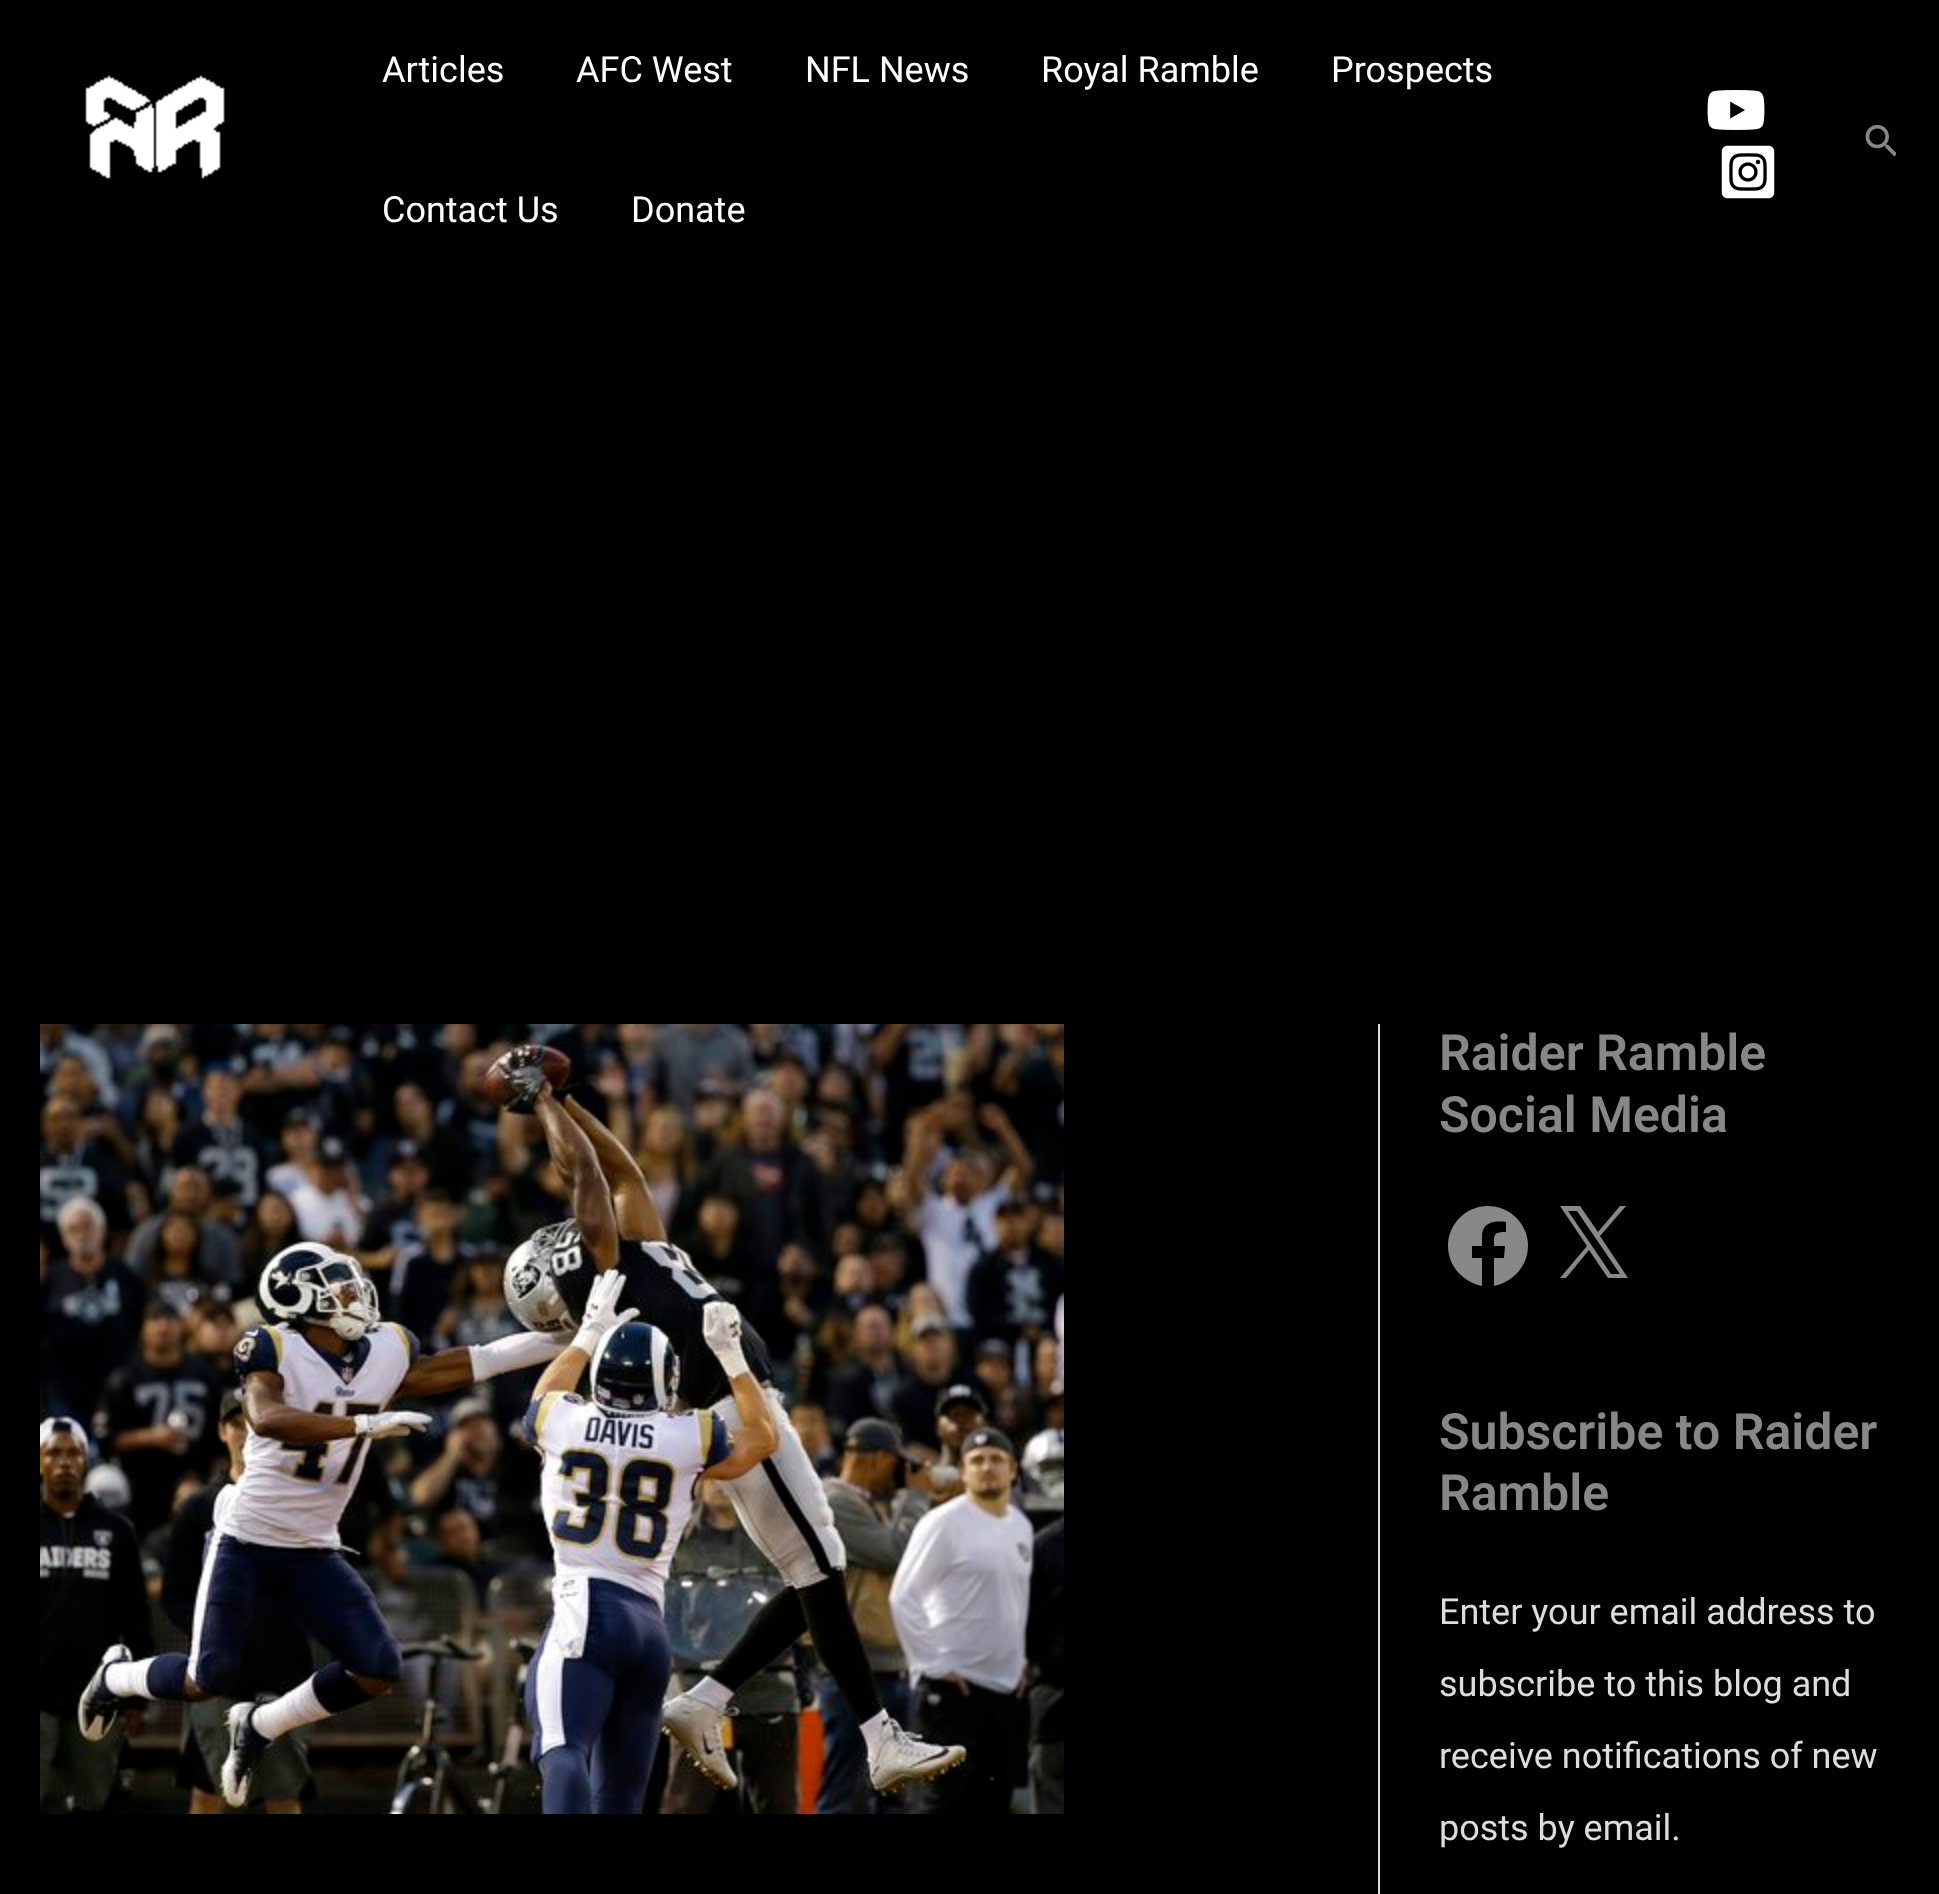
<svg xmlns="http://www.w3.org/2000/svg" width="1939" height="1894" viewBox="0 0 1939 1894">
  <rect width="100%" height="100%" fill="#000"/>
  <image x="85" y="75" width="140" height="104" href="img/1.png"/>
  <image x="1707" y="90" width="58" height="40" href="img/2.png"/>
  <image x="1721" y="145" width="54" height="54" href="img/3.png"/>
  <image x="1865" y="124" width="31" height="33" href="img/4.png"/>
  <path d="M1378 1024h2v870H1378z" fill="#ddd"/>
  <image x="40" y="1024" width="1024" height="790" href="img/5.png"/>
  <path d="M1488 1206C1466 1206 1448 1224 1448 1246C1448 1266 1463 1282 1482 1286V1258H1472V1246H1482V1234C1484 1221 1496 1221 1506 1222V1232C1493 1232 1494 1235 1494 1246H1505L1504 1258H1494V1286C1513 1282 1528 1266 1528 1246C1528 1224 1510 1206 1488 1206Z" fill="#8a8787"/>
  <path d="M1600 1236L1626 1206H1620L1598 1232L1580 1206H1560L1587 1246L1560 1278H1566L1589 1250L1608 1278H1628ZM1592 1246L1568 1211H1577L1620 1274H1611Z" fill="#8a8787"/>
  <g font-family="Roboto" font-size="36" fill="#fff">
    <text x="382" y="82">Articles</text>
    <text x="576" y="82">AFC West</text>
    <text x="805" y="82">NFL News</text>
    <text x="1041" y="82">Royal Ramble</text>
    <text x="1331" y="82">Prospects</text>
    <text x="382" y="222">Contact Us</text>
    <text x="631" y="222">Donate</text>
  </g>
  <g font-family="Roboto" font-size="50" font-weight="600" fill="#878787">
    <text x="1439" y="1070">Raider Ramble</text>
    <text x="1439" y="1132">Social Media</text>
    <text x="1439" y="1449">Subscribe to Raider</text>
    <text x="1439" y="1510">Ramble</text>
  </g>
  <g font-family="Roboto" font-size="36" fill="#ddd">
    <text x="1439" y="1624">Enter your email address to</text>
    <text x="1439" y="1696">subscribe to this blog and</text>
    <text x="1439" y="1768">receive notifications of new</text>
    <text x="1439" y="1840">posts by email.</text>
  </g>
</svg>
